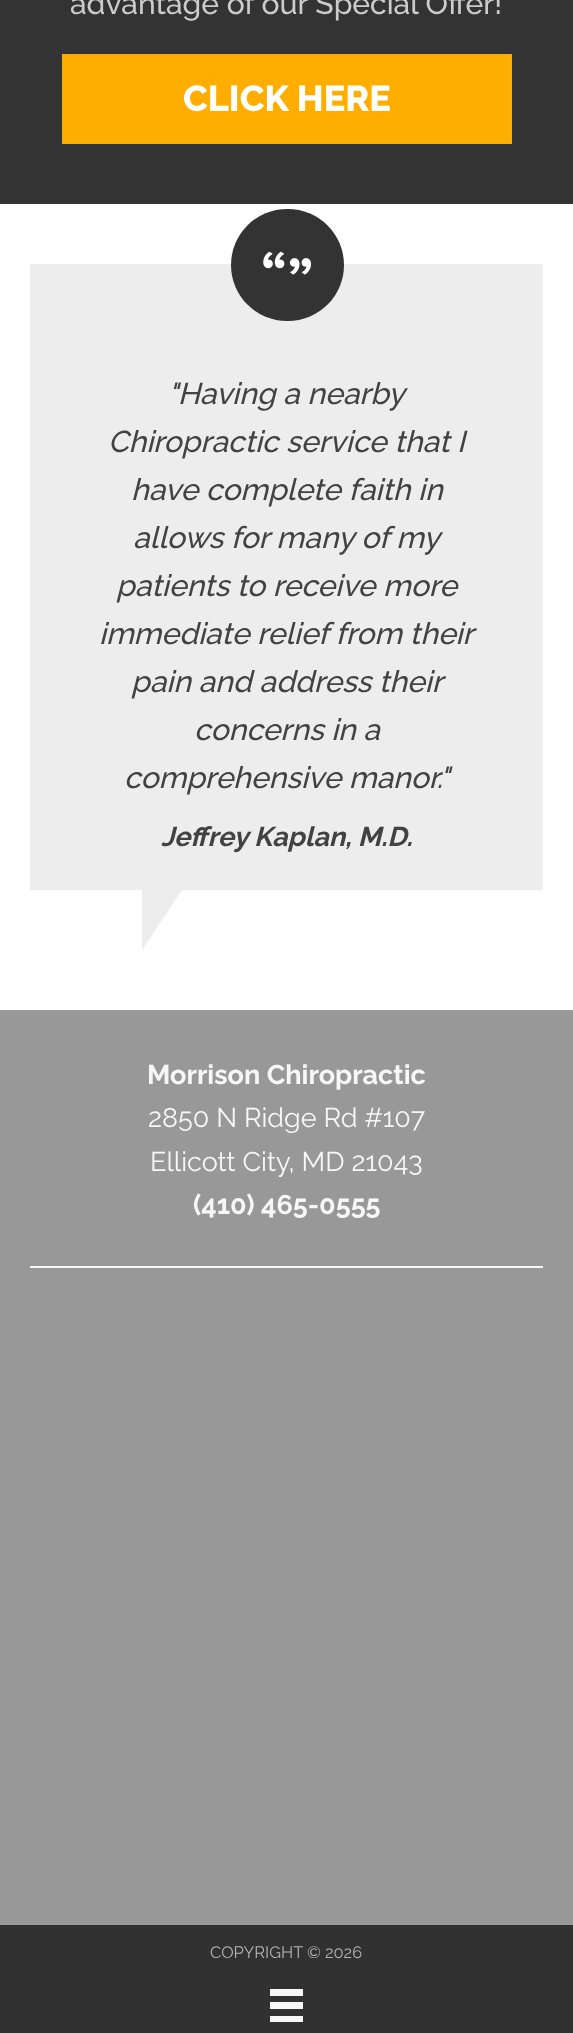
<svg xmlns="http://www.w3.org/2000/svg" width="573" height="2033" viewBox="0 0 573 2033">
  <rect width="100%" height="100%" fill="#fff"/>
  <path d="M0 0h573v204H0z" fill="#333"/>
  <path d="M62 54h450v90H62z" fill="#ffae00"/>
  <path d="M30 264h513v626H30z" fill="#ededed"/>
  <rect x="231" y="209" width="113" height="112" rx="56" fill="#333"/>
  <image x="263" y="251" width="48" height="24" href="img/1.png"/>
  <path d="M142 890H182L142 950Z" fill="#ededed"/>
  <path d="M0 1010h573v915H0z" fill="#989898"/>
  <path d="M30 1266h513v2H30z" fill="#f7f7f7"/>
  <path d="M0 1925h573v108H0z" fill="#313131"/>
  <path d="M270 1989h33v7H270z" fill="#f7f7f7"/>
  <path d="M270 2002h33v7H270z" fill="#f7f7f7"/>
  <path d="M270 2016h33v6H270z" fill="#f7f7f7"/>
  <text x="70" y="14" font-family="Raleway" font-size="30" font-weight="500" fill="#ccc">advantage of our Special Offer!</text>
  <text x="183" y="111" font-family="Raleway" font-size="36" font-weight="800" fill="#fff">CLICK HERE</text>
  <g font-family="Raleway" font-size="30" font-weight="500" font-style="italic" fill="#424242">
    <text x="168" y="404">"Having a nearby</text>
    <text x="108" y="452">Chiropractic service that I</text>
    <text x="131" y="500">have complete faith in</text>
    <text x="133" y="548">allows for many of my</text>
    <text x="116" y="596">patients to receive more</text>
    <text x="99" y="644">immediate relief from their</text>
    <text x="131" y="692">pain and address their</text>
    <text x="194" y="740">concerns in a</text>
    <text x="124" y="788">comprehensive manor."</text>
  </g>
  <text x="161" y="846" font-family="Raleway" font-size="27" font-weight="bold" font-style="italic" fill="#424242">Jeffrey Kaplan, M.D.</text>
  <text x="147" y="1084" font-family="Raleway" font-size="27" font-weight="bold" fill="#f7f7f7">Morrison Chiropractic</text>
  <g font-family="Raleway" font-size="27" fill="#f7f7f7">
    <text x="148" y="1127">2850 N Ridge Rd #107</text>
    <text x="150" y="1171">Ellicott City, MD 21043</text>
  </g>
  <text x="193" y="1214" font-family="Raleway" font-size="27" font-weight="bold" fill="#f7f7f7">(410) 465-0555</text>
  <text x="210" y="1958" font-family="Raleway" font-size="16.5" fill="#b5b5b5">COPYRIGHT © 2026</text>
</svg>
